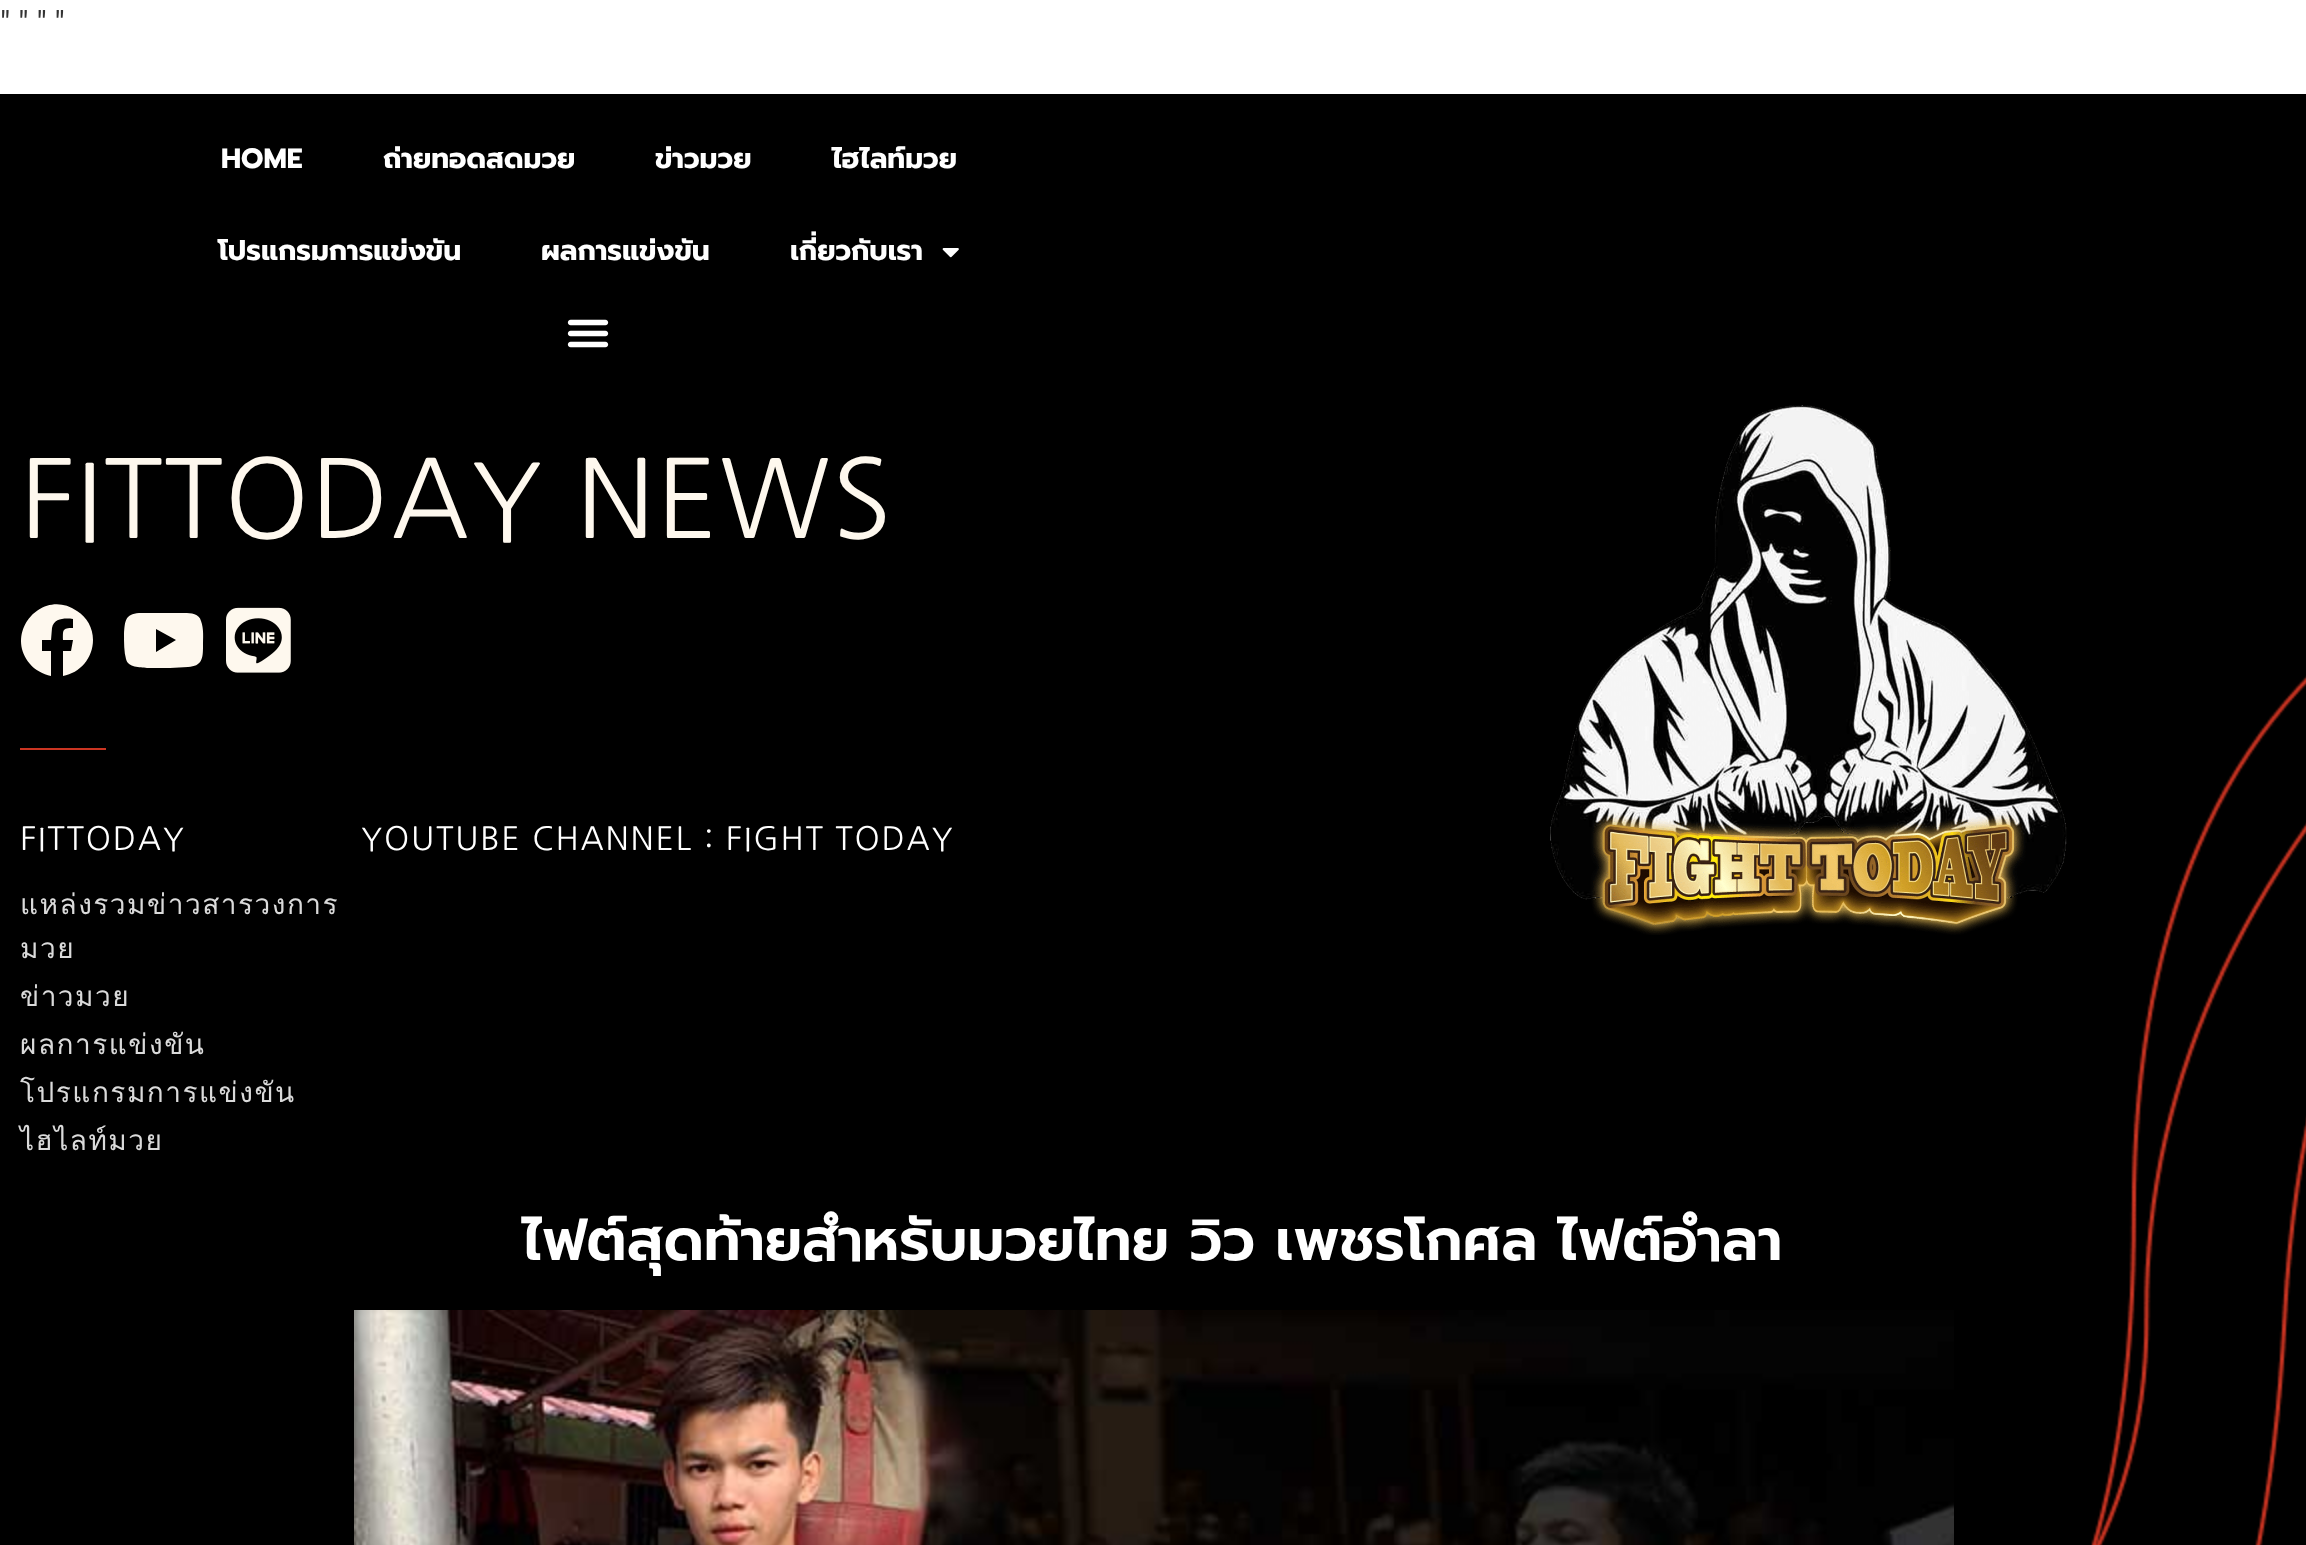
<svg xmlns="http://www.w3.org/2000/svg" width="2306" height="1545" viewBox="0 0 2306 1545">
  <rect width="100%" height="100%" fill="#fff"/>
  <path d="M0 94h2306v1451H0z" fill="#000"/>
  <image x="942" y="248" width="17" height="10" href="img/1.png"/>
  <image x="567" y="319" width="42" height="29" href="img/2.png"/>
  <path d="M93 640C93 658 80 673 63 676V651H71L73 640H63C63 630 62 628 73 628V619C65 618 54 618 52 628L51 640H42V651H51V676C43 674 35 670 30 664C3 632 43 587 77 611C87 617 93 628 93 640Z" fill="#fef8ee"/>
  <path d="M201 621C204 629 203 638 203 646C203 659 202 666 188 667L170 668H147C140 667 128 668 126 659C124 652 124 643 124 634C125 621 125 614 139 613H157H180C187 613 199 612 201 621ZM156 652L176 640L156 629Z" fill="#fef8ee"/>
  <image x="226" y="607" width="65" height="66" href="img/3.png"/>
  <path d="M20 748h86v2H20z" fill="#cb3522"/>
  <image x="1550" y="405" width="517" height="530" href="img/4.png"/>
  <image x="2091" y="675" width="215" height="870" href="img/5.png"/>
  <image x="354" y="1310" width="1600" height="235" href="img/6.png"/>
  <text x="0" y="34" font-family="Roboto" font-size="32" fill="#333">" " " "</text>
  <g font-family="Prompt" font-size="28" font-weight="bold" fill="#fff">
    <text x="221" y="168">HOME</text>
    <text x="383" y="168">ถ่ายทอดสดมวย</text>
    <text x="655" y="168">ข่าวมวย</text>
    <text x="832" y="168">ไฮไลท์มวย</text>
    <text x="218" y="260">โปรแกรมการแข่งขัน</text>
    <text x="541" y="260">ผลการแข่งขัน</text>
    <text x="790" y="260">เกี่ยวกับเรา</text>
  </g>
  <text x="20" y="538" font-family="NanumGothic" font-size="108" letter-spacing="1.5" fill="#fef8ee">FITTODAY NEWS</text>
  <text x="20" y="850" font-family="NanumGothic" font-size="32" letter-spacing="1.75" fill="#fff">FITTODAY</text>
  <g font-family="Loma" font-size="28" letter-spacing="1.5" fill="#dadada">
    <text x="20" y="914">แหล่งรวมข่าวสารวงการ</text>
    <text x="20" y="958">มวย</text>
    <text x="20" y="1006">ข่าวมวย</text>
    <text x="20" y="1054">ผลการแข่งขัน</text>
    <text x="20" y="1102">โปรแกรมการแข่งขัน</text>
    <text x="20" y="1150">ไฮไลท์มวย</text>
  </g>
  <text x="361" y="850" font-family="NanumGothic" font-size="32" letter-spacing="1.75" fill="#fff">YOUTUBE CHANNEL : FIGHT TODAY</text>
  <text x="522" y="1260" font-family="Prompt" font-size="58" font-weight="600" fill="#fff">ไฟต์สุดท้ายสำหรับมวยไทย วิว เพชรโกศล ไฟต์อำลา</text>
</svg>
